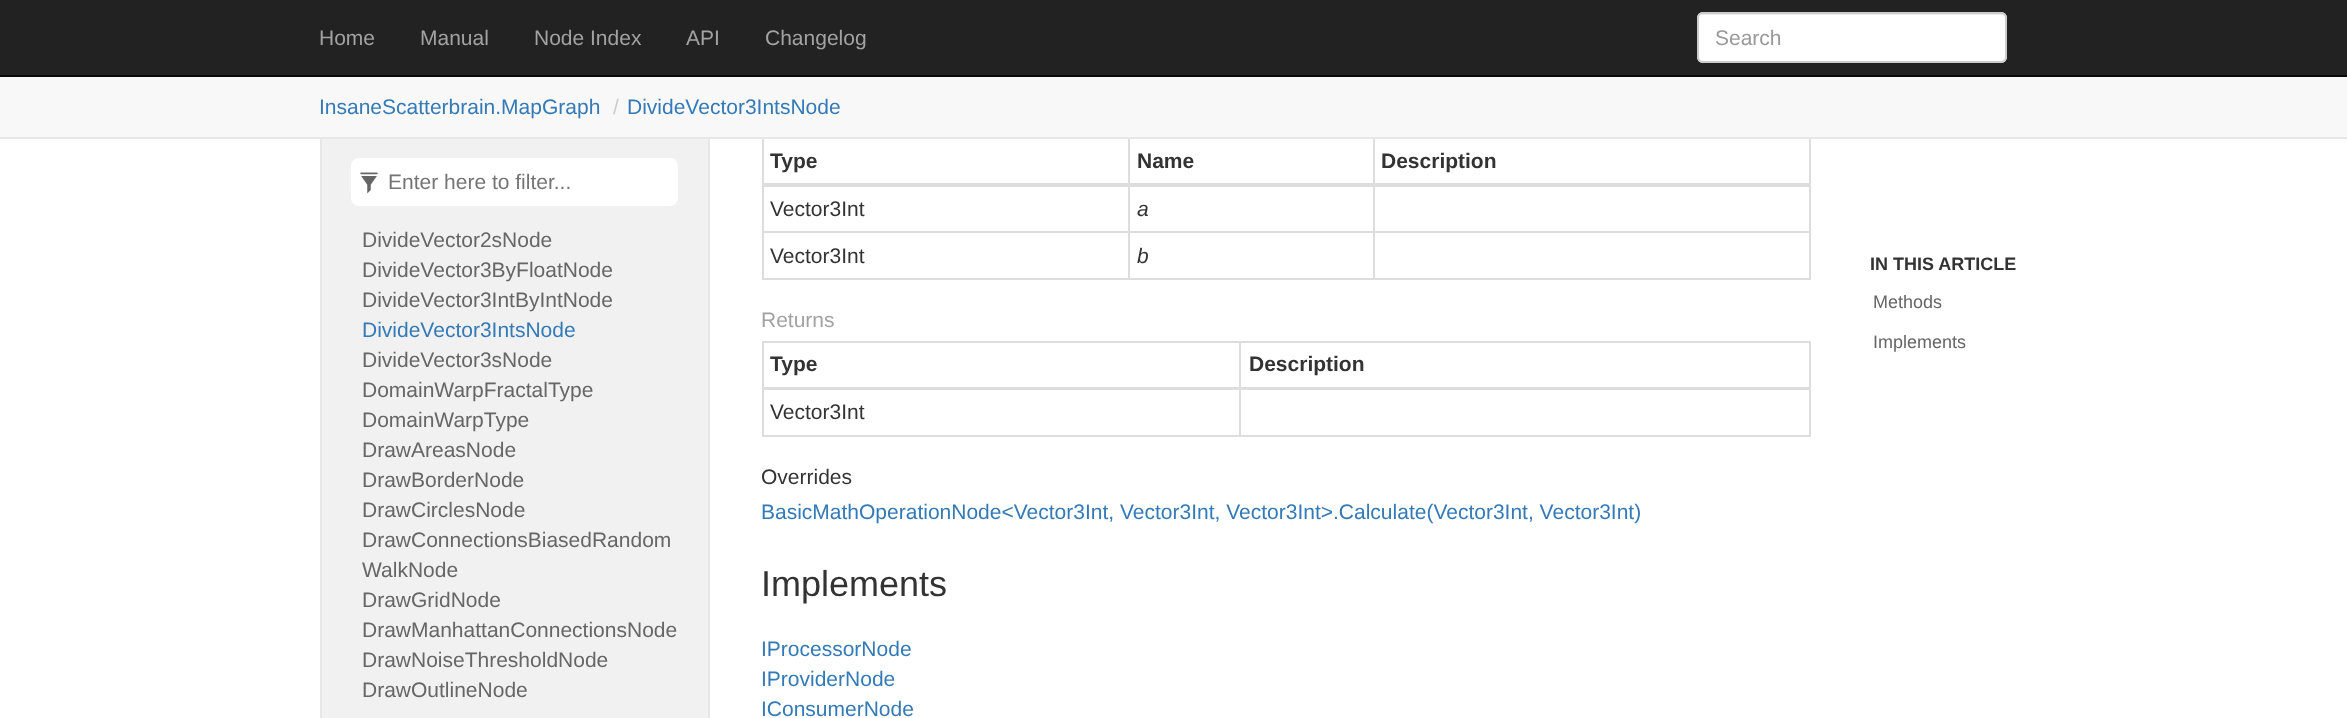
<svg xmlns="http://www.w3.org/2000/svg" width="2347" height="718">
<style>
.a{font:21px Liberation Sans;fill:#a2a2a2}
.b{font:21px Liberation Sans;fill:#999}
.c{font:21px Liberation Sans;fill:#337ab7}
.d{font:21px Liberation Sans;fill:#ccc}
.e{font:21px Liberation Sans;fill:#757575}
.f{font:21px Liberation Sans;fill:#666}
.g{font:bold 21px Liberation Sans;fill:#333}
.h{font:21px Liberation Sans;fill:#333}
.i{font:italic 21px Liberation Sans;fill:#333}
.j{font:36px Liberation Sans;fill:#333}
.k{font:bold 18px Liberation Sans;fill:#333}
.l{font:18px Liberation Sans;fill:#666}
</style>
<rect width="100%" height="100%" fill="#fff"/>
<path fill="#222" d="M0 0h2347v75H0z"/>
<path fill="#080808" d="M0 75h2347v2H0z"/>
<rect fill="#fff" x="1697" y="12" width="310" height="51" rx="6"/>
<path fill="#ececec" d="M1702 15h299c2 0 5 2 5 5c0-3-2-6-5-6h-298c-3 0-5 3-5 6c0-3 2-5 4-5z"/>
<rect fill="none" stroke="#ccc" stroke-width="2" x="1698" y="13" width="308" height="49" rx="5"/>
<path fill="#e7e7e7" d="M708 135h2v583H708z"/>
<path fill="#e7e7e7" d="M320 135h2v583H320z"/>
<path fill="#f8f8f8" d="M0 77h2347v60H0z"/>
<path fill="#ddd" d="M1809 137h2v142H1809z"/>
<path fill="#ddd" d="M762 278h1049v2H762z"/>
<path fill="#ddd" d="M762 137h2v142H762z"/>
<path fill="#ddd" d="M1373 186h438v1H1373z"/>
<path fill="#ddd" d="M1373 231h438v2H1373z"/>
<path fill="#ddd" d="M1373 231h2v48H1373z"/>
<path fill="#ddd" d="M1128 231h246v2H1128z"/>
<path fill="#ddd" d="M1373 137h2v96H1373z"/>
<path fill="#ddd" d="M1128 186h246v1H1128z"/>
<path fill="#ddd" d="M1128 231h2v48H1128z"/>
<path fill="#ddd" d="M762 231h368v2H762z"/>
<path fill="#ddd" d="M1128 137h2v96H1128z"/>
<path fill="#e7e7e7" d="M0 137h2347v2H0z"/>
<path fill="#f1f1f1" d="M322 139h386v579H322z"/>
<rect fill="#fff" x="351" y="158" width="327" height="48" rx="8"/>
<image href="1.png" x="360" y="172" width="18" height="22"/>
<path fill="#ddd" d="M762 183h1049v3H762z"/>
<path fill="#ddd" d="M762 186h368v1H762z"/>
<path fill="#ddd" d="M762 341h1049v2H762z"/>
<path fill="#ddd" d="M1809 341h2v96H1809z"/>
<path fill="#ddd" d="M762 435h1049v2H762z"/>
<path fill="#ddd" d="M762 341h2v96H762z"/>
<path fill="#ddd" d="M1239 341h2v96H1239z"/>
<path fill="#ddd" d="M762 387h1049v3H762z"/>
<text class="a" x="319" y="45">Home</text>
<text class="a" x="420" y="45">Manual</text>
<text class="a" x="534" y="45">Node Index</text>
<text class="a" x="686" y="45">API</text>
<text class="a" x="765" y="45">Changelog</text>
<text class="b" x="1715" y="45">Search</text>
<text class="c" x="319" y="114">InsaneScatterbrain.MapGraph</text>
<text class="d" x="613" y="114">/</text>
<text class="c" x="627" y="114">DivideVector3IntsNode</text>
<text class="e" x="388" y="189">Enter here to filter...</text>
<text class="f" x="362" y="247">DivideVector2sNode</text>
<text class="f" x="362" y="277">DivideVector3ByFloatNode</text>
<text class="f" x="362" y="307">DivideVector3IntByIntNode</text>
<text class="c" x="362" y="337">DivideVector3IntsNode</text>
<text class="f" x="362" y="367">DivideVector3sNode</text>
<text class="f" x="362" y="397">DomainWarpFractalType</text>
<text class="f" x="362" y="427">DomainWarpType</text>
<text class="f" x="362" y="457">DrawAreasNode</text>
<text class="f" x="362" y="487">DrawBorderNode</text>
<text class="f" x="362" y="517">DrawCirclesNode</text>
<text class="f" x="362" y="547">DrawConnectionsBiasedRandom</text>
<text class="f" x="362" y="577">WalkNode</text>
<text class="f" x="362" y="607">DrawGridNode</text>
<text class="f" x="362" y="637">DrawManhattanConnectionsNode</text>
<text class="f" x="362" y="667">DrawNoiseThresholdNode</text>
<text class="f" x="362" y="697">DrawOutlineNode</text>
<text class="g" x="770" y="168">Type</text>
<text class="g" x="1137" y="168">Name</text>
<text class="g" x="1381" y="168">Description</text>
<text class="h" x="770" y="216">Vector3Int</text>
<text class="i" x="1137" y="216">a</text>
<text class="h" x="770" y="263">Vector3Int</text>
<text class="i" x="1137" y="263">b</text>
<text class="a" x="761" y="327">Returns</text>
<text class="g" x="770" y="371">Type</text>
<text class="g" x="1249" y="371">Description</text>
<text class="h" x="770" y="419">Vector3Int</text>
<text class="h" x="761" y="484">Overrides</text>
<text class="c" x="761" y="519">BasicMathOperationNode&lt;Vector3Int, Vector3Int, Vector3Int&gt;.Calculate(Vector3Int, Vector3Int)</text>
<text class="j" x="761" y="596">Implements</text>
<text class="c" x="761" y="656">IProcessorNode</text>
<text class="c" x="761" y="686">IProviderNode</text>
<text class="c" x="761" y="716">IConsumerNode</text>
<text class="k" x="1870" y="270">IN THIS ARTICLE</text>
<text class="l" x="1873" y="308">Methods</text>
<text class="l" x="1873" y="348">Implements</text>
</svg>
